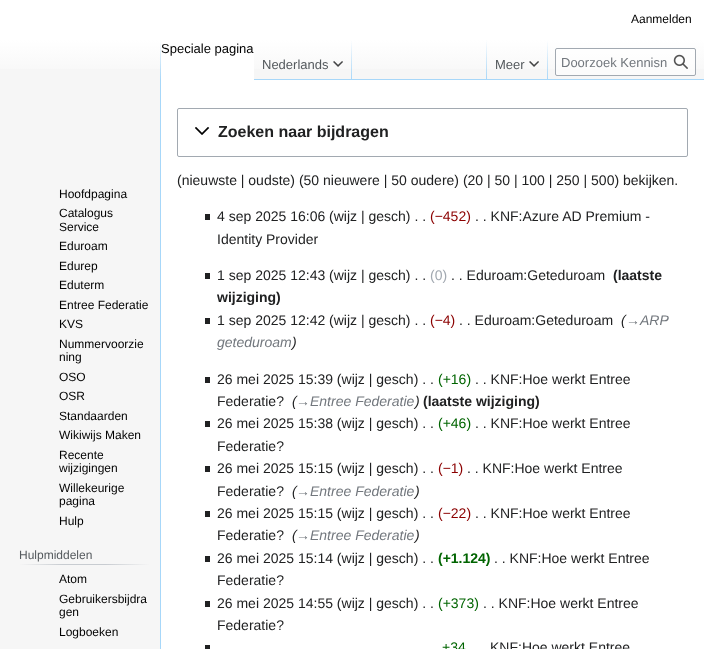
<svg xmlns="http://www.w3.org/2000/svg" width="704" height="649">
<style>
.a{font:12px Liberation Sans;fill:#000}
.b{font:13px Liberation Sans;fill:#000}
.c{font:13px Liberation Sans;fill:#54595d}
.d{font:13px Liberation Sans;fill:#72777d}
.e{font:12px Liberation Sans;fill:#54595d}
.f{font:bold 16px Liberation Sans;fill:#202122}
.g{font:14px Liberation Sans;fill:#202122}
.h{font:14px Liberation Sans;fill:#8b0000}
.i{font:14px Liberation Sans;fill:#a2a9b1}
.j{font:bold 14px Liberation Sans;fill:#202122}
.k{font:italic 14px Liberation Sans;fill:#202122}
.l{font:italic 14px Liberation Sans;fill:#72777d}
.m{font:14px Liberation Sans;fill:#006400}
.n{font:bold 14px Liberation Sans;fill:#006400}
</style>
<defs>
<linearGradient id="g1" gradientUnits="userSpaceOnUse" x1="352" y1="0" x2="352" y2="80"><stop offset="0.5" stop-color="#fff"/><stop offset="1" stop-color="#f6f6f6"/></linearGradient>
<linearGradient id="g2" gradientUnits="userSpaceOnUse" x1="161" y1="40" x2="161" y2="80"><stop offset="0" stop-color="#a7d7f9" stop-opacity="0"/><stop offset="1" stop-color="#a7d7f9"/></linearGradient>
<linearGradient id="g3" gradientUnits="userSpaceOnUse" x1="352" y1="40" x2="352" y2="80"><stop offset="0" stop-color="#a7d7f9" stop-opacity="0"/><stop offset="1" stop-color="#a7d7f9"/></linearGradient>
<linearGradient id="g4" gradientUnits="userSpaceOnUse" x1="487" y1="40" x2="487" y2="80"><stop offset="0" stop-color="#a7d7f9" stop-opacity="0"/><stop offset="1" stop-color="#a7d7f9"/></linearGradient>
<linearGradient id="g5" gradientUnits="userSpaceOnUse" x1="548" y1="40" x2="548" y2="80"><stop offset="0" stop-color="#a7d7f9" stop-opacity="0"/><stop offset="1" stop-color="#a7d7f9"/></linearGradient>
<linearGradient id="g6" gradientUnits="userSpaceOnUse" x1="19" y1="565" x2="150" y2="565"><stop offset="0" stop-color="#f6f6f6"/><stop offset="0.33" stop-color="#c8ccd1"/><stop offset="0.66" stop-color="#c8ccd1"/><stop offset="1" stop-color="#f6f6f6"/></linearGradient>
</defs>
<rect width="100%" height="100%" fill="#f6f6f6"/>
<path fill="url(#g1)" d="M0 0h704v69H0z"/>
<path fill="#a7d7f9" d="M160 79h1v570H160z"/>
<path fill="url(#g2)" d="M160 40h1v40H160z"/>
<path fill="#fff" d="M161 51h93v29H161z"/>
<path fill="#a7d7f9" d="M254 79h450v1H254z"/>
<path fill="url(#g3)" d="M351 40h1v40H351z"/>
<image href="1.png" x="333" y="61" width="10" height="6"/>
<path fill="url(#g4)" d="M486 40h1v40H486z"/>
<path fill="url(#g5)" d="M547 40h1v40H547z"/>
<image href="1.png" x="529" y="61" width="10" height="6"/>
<rect fill="#ffffff80" stroke="#a2a9b1" x="555.5" y="48.5" width="140" height="27" rx="1.5"/>
<image href="2.png" x="673" y="54" width="15" height="15"/>
<path fill="url(#g6)" d="M19 564h131v1H19z"/>
<path fill="#fff" d="M161 80h543v569H161z"/>
<rect fill="none" stroke="#a2a9b1" x="177.5" y="108.5" width="510" height="48" rx="1.5"/>
<image href="3.png" x="195" y="127" width="15" height="8"/>
<path fill="#202122" d="M205 214h5v6H205z"/>
<path fill="#202122" d="M205 273h5v6H205z"/>
<path fill="#202122" d="M205 318h5v6H205z"/>
<path fill="#202122" d="M205 377h5v6H205z"/>
<path fill="#202122" d="M205 421h5v6H205z"/>
<path fill="#202122" d="M205 466h5v6H205z"/>
<path fill="#202122" d="M205 511h5v6H205z"/>
<path fill="#202122" d="M205 556h5v6H205z"/>
<path fill="#202122" d="M205 601h5v6H205z"/>
<path fill="#202122" d="M205 645h5v4H205z"/>
<text class="a" x="631" y="23">Aanmelden</text>
<text class="b" x="161" y="53">Speciale pagina</text>
<text class="c" x="262" y="69">Nederlands</text>
<text class="c" x="495" y="69">Meer</text>
<text class="d" x="561" y="67">Doorzoek Kennisn</text>
<text class="a" x="59" y="198">Hoofdpagina</text>
<text class="a" x="59" y="217">Catalogus</text>
<text class="a" x="59" y="231">Service</text>
<text class="a" x="59" y="250">Eduroam</text>
<text class="a" x="59" y="270">Edurep</text>
<text class="a" x="59" y="289">Eduterm</text>
<text class="a" x="59" y="309">Entree Federatie</text>
<text class="a" x="59" y="328">KVS</text>
<text class="a" x="59" y="348">Nummervoorzie</text>
<text class="a" x="59" y="361">ning</text>
<text class="a" x="59" y="381">OSO</text>
<text class="a" x="59" y="400">OSR</text>
<text class="a" x="59" y="420">Standaarden</text>
<text class="a" x="59" y="439">Wikiwijs Maken</text>
<text class="a" x="59" y="459">Recente</text>
<text class="a" x="59" y="472">wijzigingen</text>
<text class="a" x="59" y="492">Willekeurige</text>
<text class="a" x="59" y="505">pagina</text>
<text class="a" x="59" y="525">Hulp</text>
<text class="e" x="19" y="559">Hulpmiddelen</text>
<text class="a" x="59" y="583">Atom</text>
<text class="a" x="59" y="603">Gebruikersbijdra</text>
<text class="a" x="59" y="616">gen</text>
<text class="a" x="59" y="636">Logboeken</text>
<text class="f" x="218" y="137">Zoeken naar bijdragen</text>
<text class="g" x="177" y="185">(nieuwste | oudste) (50 nieuwere | 50 oudere) (20 | 50 | 100 | 250 | 500) bekijken.</text>
<text class="g" x="217" y="221">4 sep 2025 16:06 (wijz | gesch) . .</text>
<text class="h" x="430" y="221">(−452)</text>
<text class="g" x="475" y="221">. . KNF:Azure AD Premium -</text>
<text class="g" x="217" y="244">Identity Provider</text>
<text class="g" x="217" y="280">1 sep 2025 12:43 (wijz | gesch) . .</text>
<text class="i" x="430" y="280">(0)</text>
<text class="g" x="451" y="280">. . Eduroam:Geteduroam</text>
<text class="j" x="613" y="280">(laatste</text>
<text class="j" x="217" y="302">wijziging)</text>
<text class="g" x="217" y="325">1 sep 2025 12:42 (wijz | gesch) . .</text>
<text class="h" x="430" y="325">(−4)</text>
<text class="g" x="459" y="325">. . Eduroam:Geteduroam</text>
<text class="k" x="621" y="325">(</text>
<text class="l" x="626" y="325">→ARP</text>
<text class="l" x="217" y="347">geteduroam</text>
<text class="k" x="292" y="347">)</text>
<text class="g" x="217" y="384">26 mei 2025 15:39 (wijz | gesch) . .</text>
<text class="m" x="438" y="384">(+16)</text>
<text class="g" x="475" y="384">. . KNF:Hoe werkt Entree</text>
<text class="g" x="217" y="406">Federatie?</text>
<text class="k" x="292" y="406">(</text>
<text class="l" x="296" y="406">→Entree Federatie</text>
<text class="k" x="415" y="406">)</text>
<text class="j" x="423" y="406">(laatste wijziging)</text>
<text class="g" x="217" y="428">26 mei 2025 15:38 (wijz | gesch) . .</text>
<text class="m" x="438" y="428">(+46)</text>
<text class="g" x="475" y="428">. . KNF:Hoe werkt Entree</text>
<text class="g" x="217" y="451">Federatie?</text>
<text class="g" x="217" y="473">26 mei 2025 15:15 (wijz | gesch) . .</text>
<text class="h" x="438" y="473">(−1)</text>
<text class="g" x="467" y="473">. . KNF:Hoe werkt Entree</text>
<text class="g" x="217" y="496">Federatie?</text>
<text class="k" x="292" y="496">(</text>
<text class="l" x="296" y="496">→Entree Federatie</text>
<text class="k" x="415" y="496">)</text>
<text class="g" x="217" y="518">26 mei 2025 15:15 (wijz | gesch) . .</text>
<text class="h" x="438" y="518">(−22)</text>
<text class="g" x="475" y="518">. . KNF:Hoe werkt Entree</text>
<text class="g" x="217" y="540">Federatie?</text>
<text class="k" x="292" y="540">(</text>
<text class="l" x="296" y="540">→Entree Federatie</text>
<text class="k" x="415" y="540">)</text>
<text class="g" x="217" y="563">26 mei 2025 15:14 (wijz | gesch) . .</text>
<text class="n" x="438" y="563">(+1.124)</text>
<text class="g" x="494" y="563">. . KNF:Hoe werkt Entree</text>
<text class="g" x="217" y="585">Federatie?</text>
<text class="g" x="217" y="608">26 mei 2025 14:55 (wijz | gesch) . .</text>
<text class="m" x="438" y="608">(+373)</text>
<text class="g" x="483" y="608">. . KNF:Hoe werkt Entree</text>
<text class="g" x="217" y="630">Federatie?</text>
<text class="m" x="442" y="652">+34</text>
<text class="g" x="490" y="652">KNF:Hoe werkt Entree</text>
</svg>
